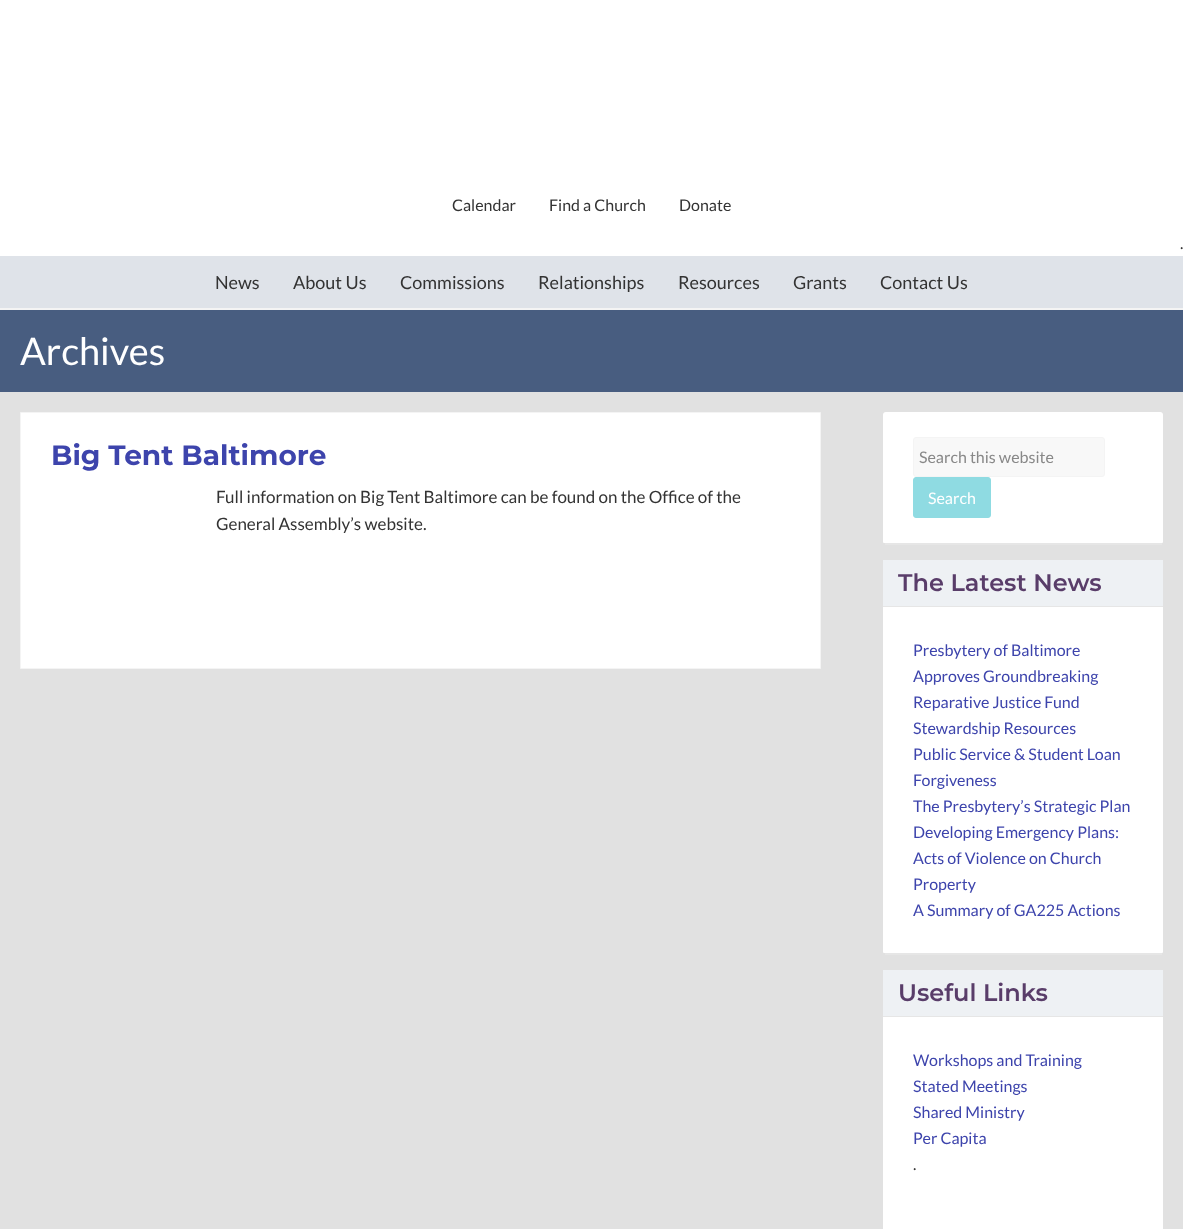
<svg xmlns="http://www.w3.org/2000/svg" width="1183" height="1229">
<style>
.a{font:16px Lato;fill:#333}
.b{font:18px Lato;fill:#333}
.c{font:38px Lato;fill:#fff}
.d{font:bold 28px Montserrat;fill:#3d44ac}
.e{font:17px Lato;fill:#333}
.f{font:16px Lato;fill:#888}
.g{font:16px Lato;fill:#fff}
.h{font:600 24px Montserrat;fill:#593d69}
.i{font:16px Lato;fill:#3d44ac}
</style>
<rect width="100%" height="100%" fill="#e1e1e1"/>
<path fill="#fff" d="M0 0h1183v256H0z"/>
<path fill="#dfe3e9" d="M0 256h1183v52H0z"/>
<path fill="#f4f4f4" d="M0 308h1183v2H0z"/>
<path fill="#485d80" d="M0 310h1183v82H0z"/>
<path fill="#fff" stroke="#f4f4f4" d="M20.5 412.5h800v256H20.5z"/>
<path fill="#fff" d="M886 412h274c2 0 3 1 3 3v127c0 1-1 1-3 1h-274c-2 0-3 0-3-1v-127c0-2 1-3 3-3z"/>
<path fill="#e6e6e6" d="M885 543h277v2H885z"/>
<rect fill="#f8f8f8" stroke="#f4f4f4" x="913.5" y="437.5" width="191" height="39" rx="2.5"/>
<rect fill="#8fdbe2" stroke="#8fdbe2" x="913.5" y="477.5" width="77" height="40" rx="2.5"/>
<path fill="#fff" d="M886 560h274c2 0 3 1 3 3v389c0 1-1 1-3 1h-274c-2 0-3 0-3-1v-389c0-2 1-3 3-3z"/>
<path fill="#e6e6e6" d="M885 953h277v2H885z"/>
<path fill="#eef1f4" d="M883 560h280v46H883z"/>
<path fill="#e6e6e6" d="M883 606h280v1H883z"/>
<path fill="#fff" d="M886 970h274c2 0 3 1 3 3v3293c0 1-1 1-3 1h-274c-2 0-3 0-3-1v-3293c0-2 1-3 3-3z"/>
<path fill="#eef1f4" d="M883 970h280v46H883z"/>
<path fill="#e6e6e6" d="M883 1016h280v1H883z"/>
<text class="a" x="452" y="211">Calendar</text>
<text class="a" x="549" y="211">Find a Church</text>
<text class="a" x="679" y="211">Donate</text>
<text class="a" x="1180" y="249">.</text>
<text class="b" x="215" y="289">News</text>
<text class="b" x="293" y="289">About Us</text>
<text class="b" x="400" y="289">Commissions</text>
<text class="b" x="538" y="289">Relationships</text>
<text class="b" x="678" y="289">Resources</text>
<text class="b" x="793" y="289">Grants</text>
<text class="b" x="880" y="289">Contact Us</text>
<text class="c" x="20" y="365">Archives</text>
<text class="d" x="51" y="465">Big Tent Baltimore</text>
<text class="e" x="216" y="503">Full information on Big Tent Baltimore can be found on the Office of the</text>
<text class="e" x="216" y="530">General Assembly’s website.</text>
<text class="f" x="919" y="463">Search this website</text>
<text class="g" x="928" y="504">Search</text>
<text class="h" x="898" y="591">The Latest News</text>
<text class="i" x="913" y="656">Presbytery of Baltimore</text>
<text class="i" x="913" y="682">Approves Groundbreaking</text>
<text class="i" x="913" y="708">Reparative Justice Fund</text>
<text class="i" x="913" y="734">Stewardship Resources</text>
<text class="i" x="913" y="760">Public Service &amp; Student Loan</text>
<text class="i" x="913" y="786">Forgiveness</text>
<text class="i" x="913" y="812">The Presbytery’s Strategic Plan</text>
<text class="i" x="913" y="838">Developing Emergency Plans:</text>
<text class="i" x="913" y="864">Acts of Violence on Church</text>
<text class="i" x="913" y="890">Property</text>
<text class="i" x="913" y="916">A Summary of GA225 Actions</text>
<text class="h" x="898" y="1001">Useful Links</text>
<text class="i" x="913" y="1066">Workshops and Training</text>
<text class="i" x="913" y="1092">Stated Meetings</text>
<text class="i" x="913" y="1118">Shared Ministry</text>
<text class="i" x="913" y="1144">Per Capita</text>
<text class="a" x="913" y="1170">.</text>
</svg>
